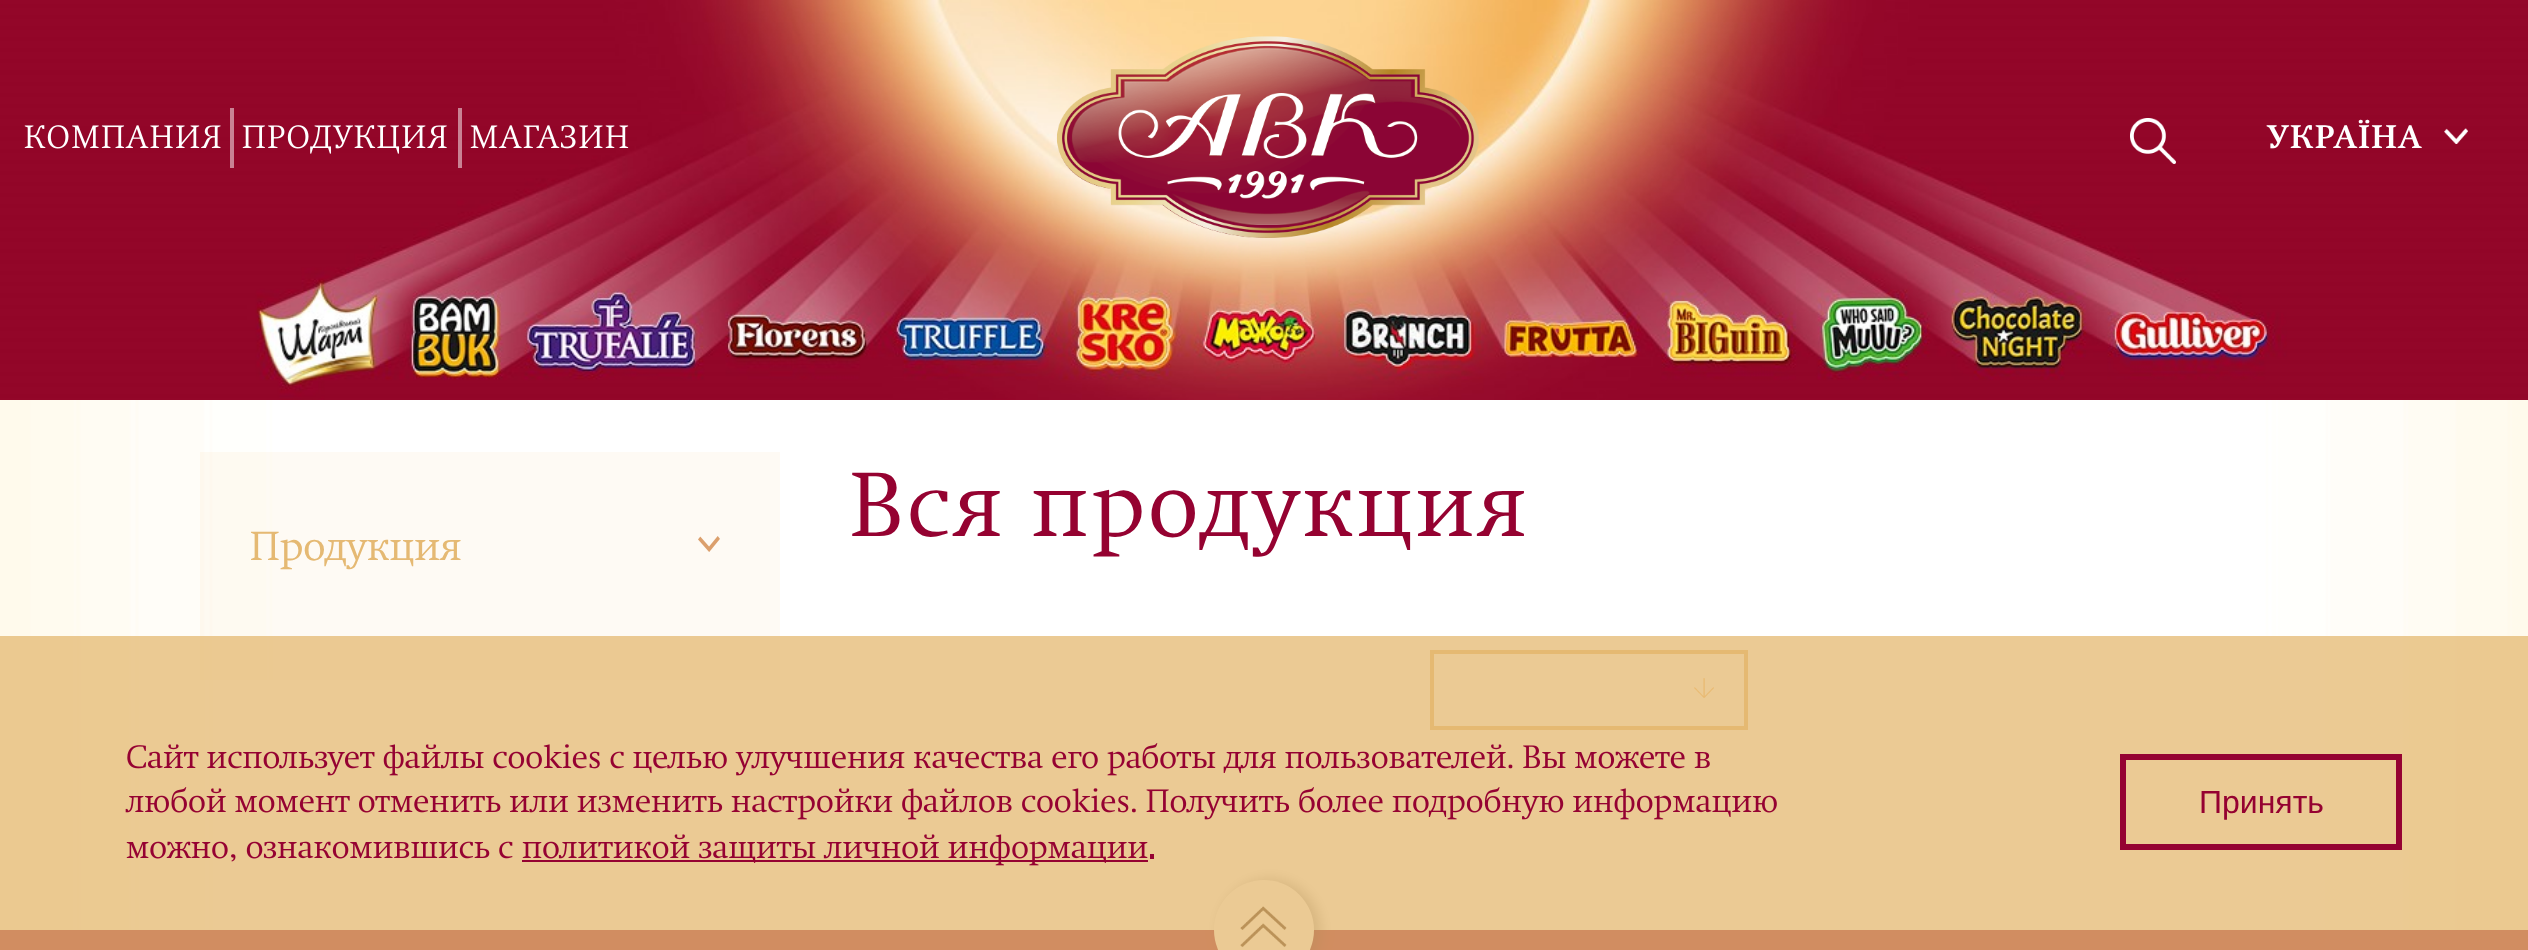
<svg xmlns="http://www.w3.org/2000/svg" width="2528" height="950">
<style>
.a{font:bold 32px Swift;letter-spacing:1.5px;fill:#fff}
.b{font:300 40px Swift;fill:#e5b973}
.c{font:300 90px Swift;letter-spacing:3.6px;fill:#950231}
.d{font:32px Liberation Sans;fill:#950231}
</style>
<rect width="100%" height="100%" fill="#fff"/>
<image href="1.png" x="0" y="400" width="2528" height="530"/>
<image href="2.png" x="0" y="0" width="2528" height="400"/>
<image href="3.png" x="1056" y="36" width="423" height="202"/>
<image href="4.png" x="2130" y="118" width="46" height="46"/>
<image href="5.png" x="24" y="125" width="197" height="24"/>
<path fill="#c98294" d="M230 108h4v60H230z"/>
<image href="6.png" x="242" y="125" width="205" height="29"/>
<path fill="#c98294" d="M458 108h4v60H458z"/>
<image href="7.png" x="470" y="125" width="159" height="24"/>
<image href="8.png" x="2444" y="128" width="24" height="16"/>
<path fill="#f8d0911a" d="M200 452h580v228H200z"/>
<image href="9.png" x="698" y="536" width="22" height="16"/>
<path fill="none" stroke="#e5b973" stroke-width="4" d="M1432 652h314v76H1432z"/>
<image href="10.png" x="1694" y="678" width="20" height="20"/>
<path fill="#94042a" d="M0 930h2528v20H0z"/>
<rect fill="#00000059" filter="blur(7px)" x="1220" y="880" width="100" height="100" rx="50"/>
<circle fill="#fff" cx="1264" cy="930" r="50"/>
<image href="15.png" x="1240" y="906" width="47" height="42"/>
<path fill="#e5b973c2" d="M0 636h2528v314H0z"/>
<image href="11.png" x="127" y="743" width="1583" height="33"/>
<image href="12.png" x="125" y="787" width="1652" height="33"/>
<image href="13.png" x="126" y="841" width="387" height="21"/>
<path fill="#950232" d="M522 860h626v2H522z"/>
<image href="14.png" x="522" y="834" width="626" height="32"/>
<path fill="#950232" d="M1150 854h4v5H1150z"/>
<path fill="none" stroke="#950232" stroke-width="6" d="M2123 757h276v90H2123z"/>
<text class="a" x="2267" y="148">УКРАЇНА</text>
<text class="b" x="250" y="560">Продукция</text>
<text class="c" x="850" y="536">Вся продукция</text>
<text class="d" x="2199" y="813">Принять</text>
</svg>
